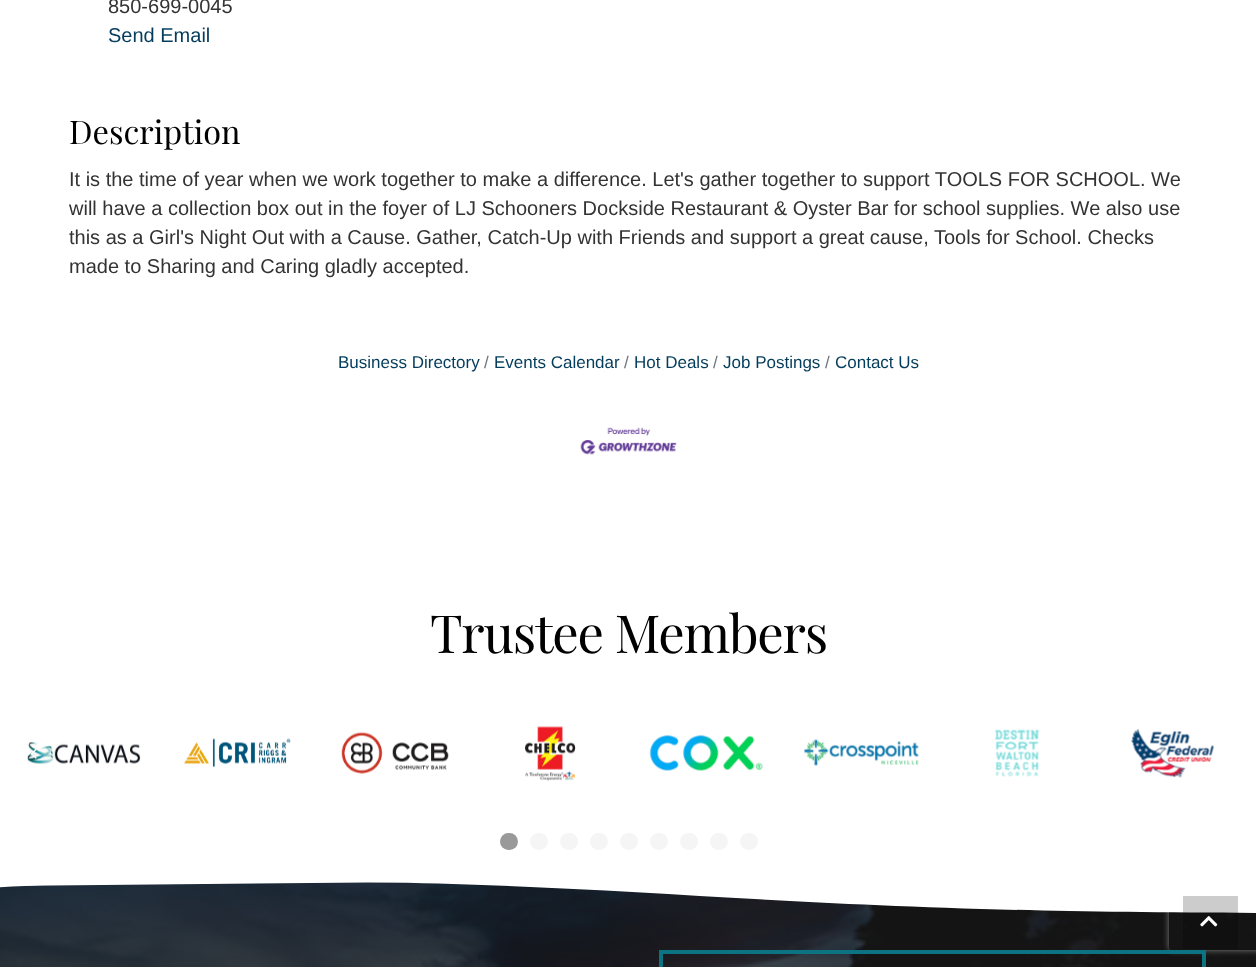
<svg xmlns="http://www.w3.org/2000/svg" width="1256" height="967">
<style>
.a{font:20px Liberation Sans;fill:#333}
.b{font:20px Liberation Sans;fill:#043c5c}
.c{font:32.5px Playfair Display;fill:#000}
.d{font:17px Liberation Sans;fill:#043c5c}
.e{font:17px Liberation Sans;fill:#6c757d}
.f{font:52.5px Playfair Display;letter-spacing:-1.25px;fill:#000}
</style>
<defs>
<clipPath id="clip1"><path d="M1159 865h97v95h-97zm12.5 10h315c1.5 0 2.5 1 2.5 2.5v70c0 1.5-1 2.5-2.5 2.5h-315c-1.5 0-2.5-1-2.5-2.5v-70c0-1.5 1-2.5 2.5-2.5z" clip-rule="evenodd"/></clipPath>
<clipPath id="clip2"><path d="M0 858h1256v18H0z"/></clipPath>
</defs>
<rect width="100%" height="100%" fill="#fff"/>
<image href="1.png" x="580" y="427" width="97" height="28"/>
<image href="2.png" x="27" y="741" width="114" height="23"/>
<image href="3.png" x="184" y="738" width="107" height="30"/>
<image href="4.png" x="341" y="732" width="108" height="42"/>
<image href="5.png" x="525" y="726" width="51" height="55"/>
<image href="6.png" x="649" y="735" width="115" height="36"/>
<image href="7.png" x="803" y="739" width="116" height="27"/>
<image href="8.png" x="995" y="729" width="45" height="48"/>
<image href="9.png" x="1131" y="728" width="83" height="50"/>
<rect fill="#999" x="500" y="833" width="18" height="17" rx="8.5"/>
<rect fill="#f5f5f5" x="530" y="833" width="18" height="17" rx="8.5"/>
<rect fill="#f5f5f5" x="560" y="833" width="18" height="17" rx="8.5"/>
<rect fill="#f5f5f5" x="590" y="833" width="18" height="17" rx="8.5"/>
<rect fill="#f5f5f5" x="620" y="833" width="18" height="17" rx="8.5"/>
<rect fill="#f5f5f5" x="650" y="833" width="18" height="17" rx="8.5"/>
<rect fill="#f5f5f5" x="680" y="833" width="18" height="17" rx="8.5"/>
<rect fill="#f5f5f5" x="710" y="833" width="18" height="17" rx="8.5"/>
<rect fill="#f5f5f5" x="740" y="833" width="18" height="17" rx="8.5"/>
<image href="10.png" x="31" y="749" width="6" height="10"/>
<image href="11.png" x="0" y="882" width="1256" height="85"/>
<g clip-path="url(#clip1)">
<rect fill="#808080" filter="blur(3px)" x="1169" y="875" width="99" height="75" rx="2.5"/>
</g>
<g clip-path="url(#clip2)">
<path fill="#fff" d="M0 857h1256zm0 19h1256v-9h-1256zm1256-19v10h-1256v-10l628 10z"/>
</g>
<path fill="#fff" d="M0 886h1256zm0-12h1256v6h-1256zm1256 12v-6h-1256v6l628-6z"/>
<path fill="#fff" d="M-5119 875h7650c-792 0-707 38-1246 38c-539 0-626-32-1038-32c-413 0-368 39-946 27c-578-11-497 28-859 28c-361 0-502-28-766-28c-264 0-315 15-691 12c-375-4-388-34-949-25c-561 9-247-20-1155-20z"/>
<path fill="none" stroke="#0c7383" stroke-width="4" d="M661 952h543v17H661z"/>
<path fill="#00000033" d="M1183 896h55v53H1183z"/>
<image href="12.png" x="1200" y="916" width="18" height="11"/>
<text class="a" x="108" y="13">850-699-0045</text>
<text class="b" x="108" y="42">Send Email</text>
<text class="c" x="69" y="144">Description</text>
<text class="a" x="69" y="186">It is the time of year when we work together to make a difference. Let's gather together to support TOOLS FOR SCHOOL. We</text>
<text class="a" x="69" y="215">will have a collection box out in the foyer of LJ Schooners Dockside Restaurant &amp; Oyster Bar for school supplies. We also use</text>
<text class="a" x="69" y="244">this as a Girl's Night Out with a Cause. Gather, Catch-Up with Friends and support a great cause, Tools for School. Checks</text>
<text class="a" x="69" y="273">made to Sharing and Caring gladly accepted.</text>
<text class="d" x="338" y="368">Business Directory</text>
<text class="e" x="484" y="368">/</text>
<text class="d" x="494" y="368">Events Calendar</text>
<text class="e" x="624" y="368">/</text>
<text class="d" x="634" y="368">Hot Deals</text>
<text class="e" x="713" y="368">/</text>
<text class="d" x="723" y="368">Job Postings</text>
<text class="e" x="825" y="368">/</text>
<text class="d" x="835" y="368">Contact Us</text>
<text class="f" x="430" y="653">Trustee Members</text>
</svg>
